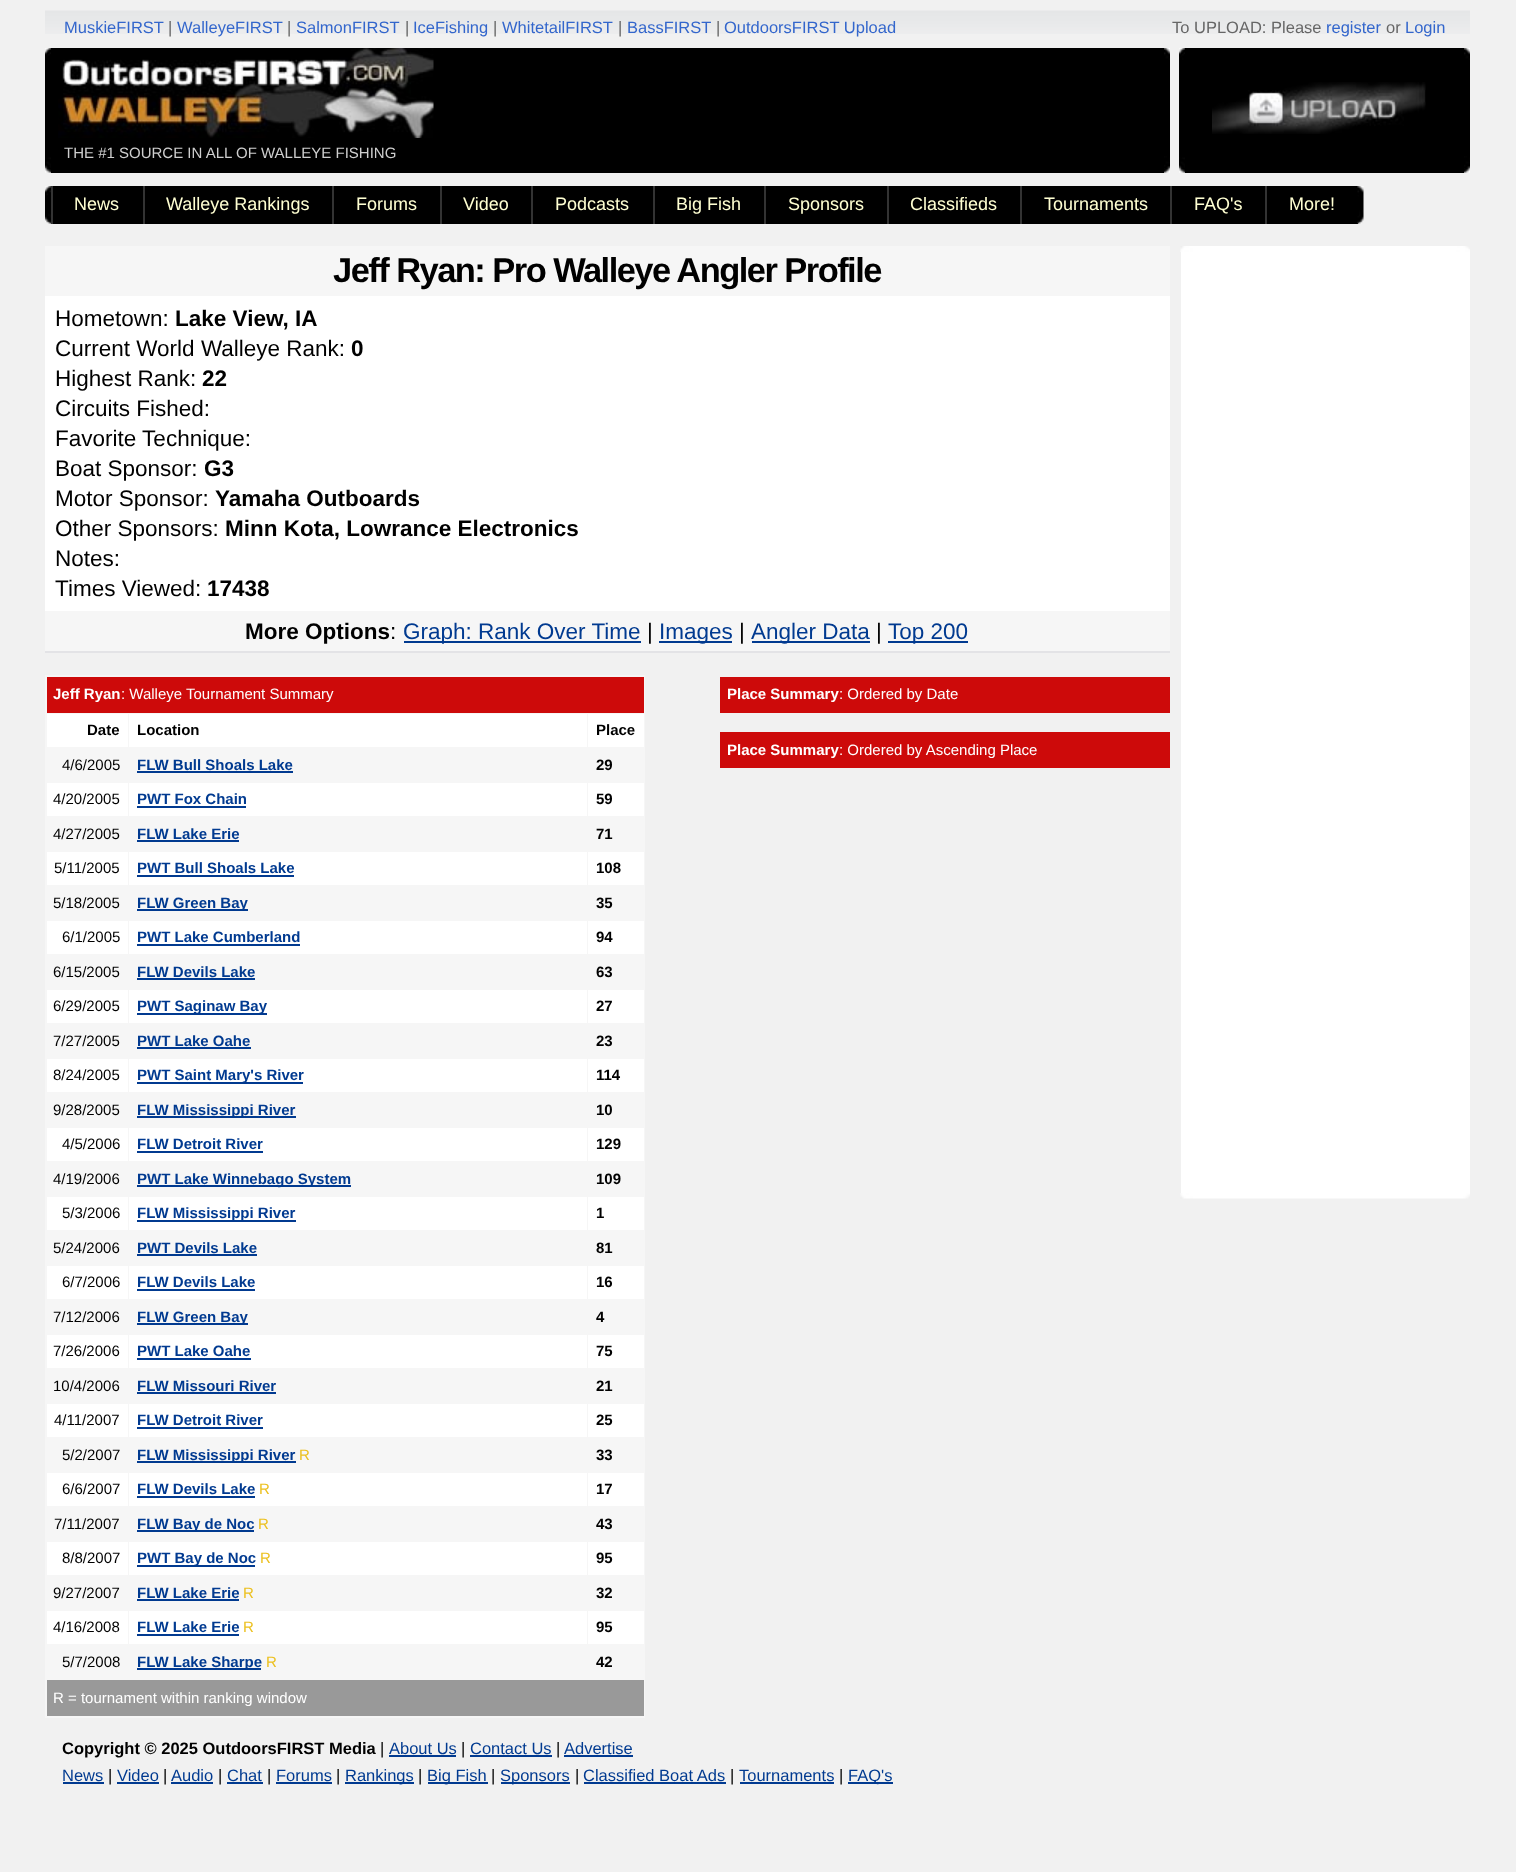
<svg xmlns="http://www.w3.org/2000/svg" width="1516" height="1872">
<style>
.a{font:16.5px Liberation Sans;fill:#36c}
.b{font:16.5px Liberation Sans;fill:#666}
.c{font:15px Liberation Sans;fill:#cecece}
.d{font:18px Liberation Sans;fill:#ffffd2}
.e{font:bold 34.5px Liberation Sans;letter-spacing:-1.55px;fill:#000}
.f{font:22.5px Liberation Sans;fill:#000}
.g{font:bold 22.5px Liberation Sans;fill:#000}
.h{font:22.5px Liberation Sans;fill:#013a90}
.i{font:bold 15px Liberation Sans;fill:#fff}
.j{font:15px Liberation Sans;fill:#fff}
.k{font:bold 15px Liberation Sans;fill:#000}
.l{font:15px Liberation Sans;fill:#000}
.m{font:bold 15px Liberation Sans;fill:#013a90}
.n{font:15px Liberation Sans;fill:#ecc01f}
.o{font:bold 16.5px Liberation Sans;fill:#000}
.p{font:16.5px Liberation Sans;fill:#000}
.q{font:16.5px Liberation Sans;fill:#013a90}
</style>
<rect width="100%" height="100%" fill="#f1f1f1"/>
<image href="1.png" x="45" y="10" width="1425" height="24"/>
<image href="2.png" x="45" y="48" width="6" height="125"/>
<path fill="#000" d="M51 48h1113v125H51z"/>
<image href="3.png" x="58" y="48" width="376" height="90"/>
<image href="4.png" x="1164" y="48" width="6" height="125"/>
<image href="5.png" x="1179" y="48" width="6" height="125"/>
<path fill="#000" d="M1185 48h279v125H1185z"/>
<image href="6.png" x="1212" y="82" width="214" height="52"/>
<image href="4.png" x="1464" y="48" width="6" height="125"/>
<image href="7.png" x="45" y="186" width="6" height="38"/>
<path fill="#000" d="M53 186h90v38H53z"/>
<path fill="#333" d="M51 186h2v38H51z"/>
<path fill="#000" d="M145 186h187v38H145z"/>
<path fill="#333" d="M143 186h2v38H143z"/>
<path fill="#000" d="M334 186h106v38H334z"/>
<path fill="#333" d="M332 186h2v38H332z"/>
<path fill="#000" d="M442 186h89v38H442z"/>
<path fill="#333" d="M440 186h2v38H440z"/>
<path fill="#000" d="M533 186h120v38H533z"/>
<path fill="#333" d="M531 186h2v38H531z"/>
<path fill="#000" d="M655 186h109v38H655z"/>
<path fill="#333" d="M653 186h2v38H653z"/>
<path fill="#000" d="M766 186h121v38H766z"/>
<path fill="#333" d="M764 186h2v38H764z"/>
<path fill="#000" d="M889 186h131v38H889z"/>
<path fill="#333" d="M887 186h2v38H887z"/>
<path fill="#000" d="M1022 186h148v38H1022z"/>
<path fill="#333" d="M1020 186h2v38H1020z"/>
<path fill="#000" d="M1172 186h93v38H1172z"/>
<path fill="#333" d="M1170 186h2v38H1170z"/>
<path fill="#000" d="M1267 186h91v38H1267z"/>
<path fill="#333" d="M1265 186h2v38H1265z"/>
<image href="8.png" x="1357" y="186" width="7" height="38"/>
<path fill="#f6f6f6" d="M45 246h1125v50H45z"/>
<path fill="#fff" d="M45 296h1125v315H45z"/>
<path fill="#f6f6f6" d="M45 611h1125v40H45z"/>
<path fill="#e3e3e6" d="M45 651h1125v2H45z"/>
<path fill="#013a90" d="M404 641h237v2H404z"/>
<path fill="#013a90" d="M659 641h73v2H659z"/>
<path fill="#013a90" d="M752 641h118v2H752z"/>
<path fill="#013a90" d="M888 641h80v2H888z"/>
<path fill="#f6f6f6" d="M45 675h600v1043H45z"/>
<path fill="#cd0a0a" d="M47 677h597v36H47z"/>
<path fill="#fff" d="M47 714h81v33H47z"/>
<path fill="#fff" d="M129 714h458v33H129z"/>
<path fill="#fff" d="M588 714h56v33H588z"/>
<path fill="#013a90" d="M137 771h156v2H137z"/>
<path fill="#fff" d="M47 783h81v33H47z"/>
<path fill="#fff" d="M129 783h458v33H129z"/>
<path fill="#013a90" d="M137 806h109v2H137z"/>
<path fill="#fff" d="M588 783h56v33H588z"/>
<path fill="#013a90" d="M137 840h102v2H137z"/>
<path fill="#fff" d="M47 852h81v33H47z"/>
<path fill="#fff" d="M129 852h458v33H129z"/>
<path fill="#013a90" d="M137 875h157v2H137z"/>
<path fill="#fff" d="M588 852h56v33H588z"/>
<path fill="#013a90" d="M137 909h111v2H137z"/>
<path fill="#fff" d="M47 921h81v33H47z"/>
<path fill="#fff" d="M129 921h458v33H129z"/>
<path fill="#013a90" d="M137 944h163v2H137z"/>
<path fill="#fff" d="M588 921h56v33H588z"/>
<path fill="#013a90" d="M137 978h118v2H137z"/>
<path fill="#fff" d="M47 990h81v33H47z"/>
<path fill="#fff" d="M129 990h458v33H129z"/>
<path fill="#013a90" d="M137 1013h130v2H137z"/>
<path fill="#fff" d="M588 990h56v33H588z"/>
<path fill="#013a90" d="M137 1047h114v2H137z"/>
<path fill="#fff" d="M47 1059h81v33H47z"/>
<path fill="#fff" d="M129 1059h458v33H129z"/>
<path fill="#013a90" d="M137 1082h166v2H137z"/>
<path fill="#fff" d="M588 1059h56v33H588z"/>
<path fill="#013a90" d="M137 1116h159v2H137z"/>
<path fill="#fff" d="M47 1128h81v33H47z"/>
<path fill="#fff" d="M129 1128h458v33H129z"/>
<path fill="#013a90" d="M137 1151h126v2H137z"/>
<path fill="#fff" d="M588 1128h56v33H588z"/>
<path fill="#013a90" d="M137 1185h214v2H137z"/>
<path fill="#fff" d="M47 1197h81v33H47z"/>
<path fill="#fff" d="M129 1197h458v33H129z"/>
<path fill="#013a90" d="M137 1220h159v2H137z"/>
<path fill="#fff" d="M588 1197h56v33H588z"/>
<path fill="#013a90" d="M137 1254h120v2H137z"/>
<path fill="#fff" d="M47 1266h81v33H47z"/>
<path fill="#fff" d="M129 1266h458v33H129z"/>
<path fill="#013a90" d="M137 1289h118v2H137z"/>
<path fill="#fff" d="M588 1266h56v33H588z"/>
<path fill="#013a90" d="M137 1323h111v2H137z"/>
<path fill="#fff" d="M47 1335h81v33H47z"/>
<path fill="#fff" d="M129 1335h458v33H129z"/>
<path fill="#013a90" d="M137 1358h114v2H137z"/>
<path fill="#fff" d="M588 1335h56v33H588z"/>
<path fill="#013a90" d="M137 1392h139v2H137z"/>
<path fill="#fff" d="M47 1404h81v33H47z"/>
<path fill="#fff" d="M129 1404h458v33H129z"/>
<path fill="#013a90" d="M137 1427h126v2H137z"/>
<path fill="#fff" d="M588 1404h56v33H588z"/>
<path fill="#013a90" d="M137 1461h159v2H137z"/>
<path fill="#fff" d="M47 1473h81v33H47z"/>
<path fill="#fff" d="M129 1473h458v33H129z"/>
<path fill="#013a90" d="M137 1496h118v2H137z"/>
<path fill="#fff" d="M588 1473h56v33H588z"/>
<path fill="#013a90" d="M137 1530h117v2H137z"/>
<path fill="#fff" d="M47 1542h81v33H47z"/>
<path fill="#fff" d="M129 1542h458v33H129z"/>
<path fill="#013a90" d="M137 1565h118v2H137z"/>
<path fill="#fff" d="M588 1542h56v33H588z"/>
<path fill="#013a90" d="M137 1599h102v2H137z"/>
<path fill="#fff" d="M47 1611h81v33H47z"/>
<path fill="#fff" d="M129 1611h458v33H129z"/>
<path fill="#013a90" d="M137 1634h102v2H137z"/>
<path fill="#fff" d="M588 1611h56v33H588z"/>
<path fill="#013a90" d="M137 1668h124v2H137z"/>
<path fill="#999" d="M47 1680h597v36H47z"/>
<path fill="#cd0a0a" d="M720 677h450v36H720z"/>
<path fill="#cd0a0a" d="M720 732h450v36H720z"/>
<path fill="#013a90" d="M389 1755h67v2H389z"/>
<path fill="#013a90" d="M470 1755h82v2H470z"/>
<path fill="#013a90" d="M564 1755h69v2H564z"/>
<path fill="#013a90" d="M63 1782h41v2H63z"/>
<path fill="#013a90" d="M117 1782h42v2H117z"/>
<path fill="#013a90" d="M171 1782h42v2H171z"/>
<path fill="#013a90" d="M227 1782h36v2H227z"/>
<path fill="#013a90" d="M276 1782h56v2H276z"/>
<path fill="#013a90" d="M345 1782h69v2H345z"/>
<path fill="#013a90" d="M428 1782h60v2H428z"/>
<path fill="#013a90" d="M501 1782h69v2H501z"/>
<path fill="#013a90" d="M584 1782h142v2H584z"/>
<path fill="#013a90" d="M740 1782h94v2H740z"/>
<path fill="#013a90" d="M848 1782h45v2H848z"/>
<image href="9.png" x="1180" y="246" width="290" height="6"/>
<path fill="#fff" d="M1181 252h289v941H1181z"/>
<image href="10.png" x="1180" y="1193" width="290" height="6"/>
<text class="a" x="64" y="33">MuskieFIRST</text>
<text class="b" x="168" y="33">|</text>
<text class="a" x="177" y="33">WalleyeFIRST</text>
<text class="b" x="287" y="33">|</text>
<text class="a" x="296" y="33">SalmonFIRST</text>
<text class="b" x="405" y="33">|</text>
<text class="a" x="413" y="33">IceFishing</text>
<text class="b" x="493" y="33">|</text>
<text class="a" x="502" y="33">WhitetailFIRST</text>
<text class="b" x="618" y="33">|</text>
<text class="a" x="627" y="33">BassFIRST</text>
<text class="b" x="716" y="33">|</text>
<text class="a" x="724" y="33">OutdoorsFIRST Upload</text>
<text class="b" x="1172" y="33">To UPLOAD: Please</text>
<text class="a" x="1326" y="33">register</text>
<text class="b" x="1386" y="33">or</text>
<text class="a" x="1405" y="33">Login</text>
<text class="c" x="64" y="158">THE #1 SOURCE IN ALL OF WALLEYE FISHING</text>
<text class="d" x="74" y="210">News</text>
<text class="d" x="166" y="210">Walleye Rankings</text>
<text class="d" x="356" y="210">Forums</text>
<text class="d" x="463" y="210">Video</text>
<text class="d" x="555" y="210">Podcasts</text>
<text class="d" x="676" y="210">Big Fish</text>
<text class="d" x="788" y="210">Sponsors</text>
<text class="d" x="910" y="210">Classifieds</text>
<text class="d" x="1044" y="210">Tournaments</text>
<text class="d" x="1194" y="210">FAQ's</text>
<text class="d" x="1289" y="210">More!</text>
<text class="e" x="333" y="282">Jeff Ryan: Pro Walleye Angler Profile</text>
<text class="f" x="55" y="326">Hometown:</text>
<text class="g" x="175" y="326">Lake View, IA</text>
<text class="f" x="55" y="356">Current World Walleye Rank:</text>
<text class="g" x="351" y="356">0</text>
<text class="f" x="55" y="386">Highest Rank:</text>
<text class="g" x="202" y="386">22</text>
<text class="f" x="55" y="416">Circuits Fished:</text>
<text class="f" x="55" y="446">Favorite Technique:</text>
<text class="f" x="55" y="476">Boat Sponsor:</text>
<text class="g" x="204" y="476">G3</text>
<text class="f" x="55" y="506">Motor Sponsor:</text>
<text class="g" x="215" y="506">Yamaha Outboards</text>
<text class="f" x="55" y="536">Other Sponsors:</text>
<text class="g" x="225" y="536">Minn Kota, Lowrance Electronics</text>
<text class="f" x="55" y="566">Notes:</text>
<text class="f" x="55" y="596">Times Viewed:</text>
<text class="g" x="207" y="596">17438</text>
<text class="g" x="245" y="639">More Options</text>
<text class="f" x="390" y="639">:</text>
<text class="h" x="403" y="639">Graph: Rank Over Time</text>
<text class="f" x="647" y="639">|</text>
<text class="h" x="659" y="639">Images</text>
<text class="f" x="739" y="639">|</text>
<text class="h" x="751" y="639">Angler Data</text>
<text class="f" x="876" y="639">|</text>
<text class="h" x="888" y="639">Top 200</text>
<text class="i" x="53" y="699">Jeff Ryan</text>
<text class="j" x="121" y="699">: Walleye Tournament Summary</text>
<text class="k" x="87" y="735">Date</text>
<text class="k" x="137" y="735">Location</text>
<text class="k" x="596" y="735">Place</text>
<text class="l" x="62" y="770">4/6/2005</text>
<text class="m" x="137" y="770">FLW Bull Shoals Lake</text>
<text class="k" x="596" y="770">29</text>
<text class="l" x="53" y="804">4/20/2005</text>
<text class="m" x="137" y="804">PWT Fox Chain</text>
<text class="k" x="596" y="804">59</text>
<text class="l" x="53" y="839">4/27/2005</text>
<text class="m" x="137" y="839">FLW Lake Erie</text>
<text class="k" x="596" y="839">71</text>
<text class="l" x="54" y="873">5/11/2005</text>
<text class="m" x="137" y="873">PWT Bull Shoals Lake</text>
<text class="k" x="596" y="873">108</text>
<text class="l" x="53" y="908">5/18/2005</text>
<text class="m" x="137" y="908">FLW Green Bay</text>
<text class="k" x="596" y="908">35</text>
<text class="l" x="62" y="942">6/1/2005</text>
<text class="m" x="137" y="942">PWT Lake Cumberland</text>
<text class="k" x="596" y="942">94</text>
<text class="l" x="53" y="977">6/15/2005</text>
<text class="m" x="137" y="977">FLW Devils Lake</text>
<text class="k" x="596" y="977">63</text>
<text class="l" x="53" y="1011">6/29/2005</text>
<text class="m" x="137" y="1011">PWT Saginaw Bay</text>
<text class="k" x="596" y="1011">27</text>
<text class="l" x="53" y="1046">7/27/2005</text>
<text class="m" x="137" y="1046">PWT Lake Oahe</text>
<text class="k" x="596" y="1046">23</text>
<text class="l" x="53" y="1080">8/24/2005</text>
<text class="m" x="137" y="1080">PWT Saint Mary's River</text>
<text class="k" x="596" y="1080">114</text>
<text class="l" x="53" y="1115">9/28/2005</text>
<text class="m" x="137" y="1115">FLW Mississippi River</text>
<text class="k" x="596" y="1115">10</text>
<text class="l" x="62" y="1149">4/5/2006</text>
<text class="m" x="137" y="1149">FLW Detroit River</text>
<text class="k" x="596" y="1149">129</text>
<text class="l" x="53" y="1184">4/19/2006</text>
<text class="m" x="137" y="1184">PWT Lake Winnebago System</text>
<text class="k" x="596" y="1184">109</text>
<text class="l" x="62" y="1218">5/3/2006</text>
<text class="m" x="137" y="1218">FLW Mississippi River</text>
<text class="k" x="596" y="1218">1</text>
<text class="l" x="53" y="1253">5/24/2006</text>
<text class="m" x="137" y="1253">PWT Devils Lake</text>
<text class="k" x="596" y="1253">81</text>
<text class="l" x="62" y="1287">6/7/2006</text>
<text class="m" x="137" y="1287">FLW Devils Lake</text>
<text class="k" x="596" y="1287">16</text>
<text class="l" x="53" y="1322">7/12/2006</text>
<text class="m" x="137" y="1322">FLW Green Bay</text>
<text class="k" x="596" y="1322">4</text>
<text class="l" x="53" y="1356">7/26/2006</text>
<text class="m" x="137" y="1356">PWT Lake Oahe</text>
<text class="k" x="596" y="1356">75</text>
<text class="l" x="53" y="1391">10/4/2006</text>
<text class="m" x="137" y="1391">FLW Missouri River</text>
<text class="k" x="596" y="1391">21</text>
<text class="l" x="54" y="1425">4/11/2007</text>
<text class="m" x="137" y="1425">FLW Detroit River</text>
<text class="k" x="596" y="1425">25</text>
<text class="l" x="62" y="1460">5/2/2007</text>
<text class="m" x="137" y="1460">FLW Mississippi River</text>
<text class="n" x="299" y="1460">R</text>
<text class="k" x="596" y="1460">33</text>
<text class="l" x="62" y="1494">6/6/2007</text>
<text class="m" x="137" y="1494">FLW Devils Lake</text>
<text class="n" x="259" y="1494">R</text>
<text class="k" x="596" y="1494">17</text>
<text class="l" x="54" y="1529">7/11/2007</text>
<text class="m" x="137" y="1529">FLW Bay de Noc</text>
<text class="n" x="258" y="1529">R</text>
<text class="k" x="596" y="1529">43</text>
<text class="l" x="62" y="1563">8/8/2007</text>
<text class="m" x="137" y="1563">PWT Bay de Noc</text>
<text class="n" x="260" y="1563">R</text>
<text class="k" x="596" y="1563">95</text>
<text class="l" x="53" y="1598">9/27/2007</text>
<text class="m" x="137" y="1598">FLW Lake Erie</text>
<text class="n" x="243" y="1598">R</text>
<text class="k" x="596" y="1598">32</text>
<text class="l" x="53" y="1632">4/16/2008</text>
<text class="m" x="137" y="1632">FLW Lake Erie</text>
<text class="n" x="243" y="1632">R</text>
<text class="k" x="596" y="1632">95</text>
<text class="l" x="62" y="1667">5/7/2008</text>
<text class="m" x="137" y="1667">FLW Lake Sharpe</text>
<text class="n" x="266" y="1667">R</text>
<text class="k" x="596" y="1667">42</text>
<text class="j" x="53" y="1703">R = tournament within ranking window</text>
<text class="i" x="727" y="699">Place Summary</text>
<text class="j" x="839" y="699">: Ordered by Date</text>
<text class="i" x="727" y="755">Place Summary</text>
<text class="j" x="839" y="755">: Ordered by Ascending Place</text>
<text class="o" x="62" y="1754">Copyright © 2025 OutdoorsFIRST Media</text>
<text class="p" x="380" y="1754">|</text>
<text class="q" x="389" y="1754">About Us</text>
<text class="p" x="461" y="1754">|</text>
<text class="q" x="470" y="1754">Contact Us</text>
<text class="p" x="556" y="1754">|</text>
<text class="q" x="564" y="1754">Advertise</text>
<text class="q" x="62" y="1781">News</text>
<text class="p" x="108" y="1781">|</text>
<text class="q" x="117" y="1781">Video</text>
<text class="p" x="163" y="1781">|</text>
<text class="q" x="171" y="1781">Audio</text>
<text class="p" x="218" y="1781">|</text>
<text class="q" x="227" y="1781">Chat</text>
<text class="p" x="267" y="1781">|</text>
<text class="q" x="276" y="1781">Forums</text>
<text class="p" x="336" y="1781">|</text>
<text class="q" x="345" y="1781">Rankings</text>
<text class="p" x="418" y="1781">|</text>
<text class="q" x="427" y="1781">Big Fish</text>
<text class="p" x="491" y="1781">|</text>
<text class="q" x="500" y="1781">Sponsors</text>
<text class="p" x="575" y="1781">|</text>
<text class="q" x="583" y="1781">Classified Boat Ads</text>
<text class="p" x="730" y="1781">|</text>
<text class="q" x="739" y="1781">Tournaments</text>
<text class="p" x="839" y="1781">|</text>
<text class="q" x="848" y="1781">FAQ's</text>
</svg>
